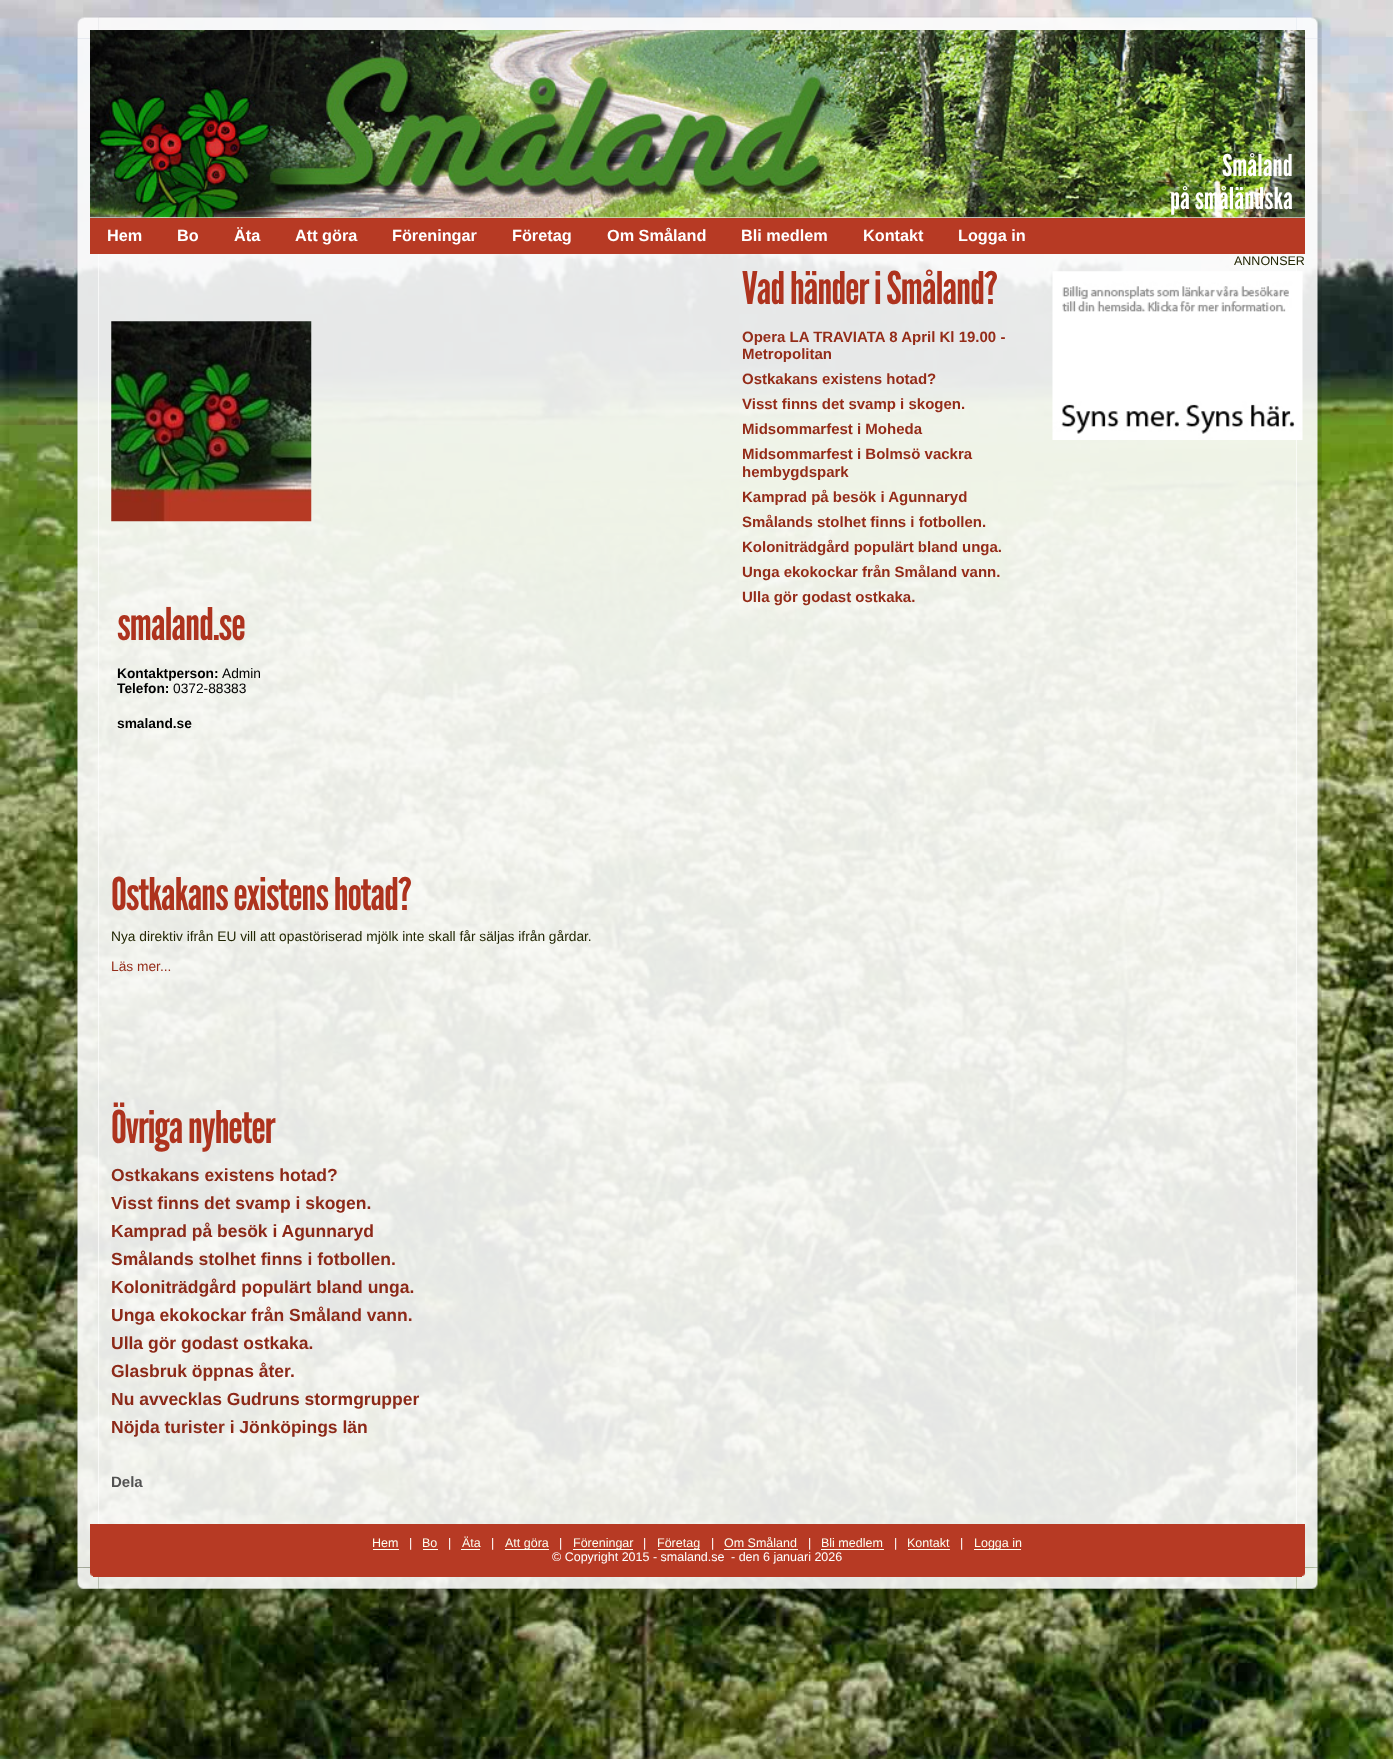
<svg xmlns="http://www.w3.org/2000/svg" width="1393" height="1759">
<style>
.a{font:30px League Gothic;fill:#fff}
.b{font:bold 16.25px Liberation Sans;fill:#fff}
.c{font:12.5px Liberation Sans;fill:#222603}
.d{font:45px League Gothic;letter-spacing:-1.25px;fill:#ae331e}
.e{font:bold 15px Liberation Sans;fill:#942c19}
.f{font:bold 13.75px Liberation Sans;fill:#000}
.g{font:13.75px Liberation Sans;fill:#000}
.h{font:13.75px Liberation Sans;fill:#222603}
.i{font:13.75px Liberation Sans;fill:#942c19}
.j{font:bold 17.5px Liberation Sans;fill:#8c2918}
.k{font:bold 15px Liberation Sans;fill:#525252}
.l{font:12.5px Liberation Sans;fill:#fcfef1}
.m{font:12.5px Liberation Sans;fill:#fff}
</style>
<rect width="100%" height="100%" fill="#fff"/>
<image href="1.png" x="0" y="0" width="1393" height="1759"/>
<image href="2.png" x="77" y="17" width="22" height="22"/>
<image href="3.png" x="99" y="16" width="1197" height="14"/>
<image href="4.png" x="1296" y="17" width="26" height="22"/>
<image href="13.png" x="77" y="1567" width="22" height="26"/>
<image href="5.png" x="76" y="39" width="23" height="1529"/>
<image href="15.png" x="1296" y="1567" width="26" height="26"/>
<image href="12.png" x="1296" y="39" width="26" height="1529"/>
<path fill="#fefefee6" d="M98 217h1199v1307H98z"/>
<image href="7.png" x="90" y="217" width="1215" height="1"/>
<image href="6.png" x="90" y="30" width="1215" height="188"/>
<path fill="#b73a24" d="M1044 218h261v36H1044z"/>
<path fill="#b73a24" d="M90 218h954v36H90z"/>
<image href="8.png" x="1052" y="271" width="251" height="169"/>
<image href="9.png" x="111" y="321" width="201" height="201"/>
<path fill="#b73a24" d="M90 1524h1215v49H90z"/>
<path fill="#fcfef1" d="M373 1549h26v1H373z"/>
<path fill="#fcfef1" d="M423 1549h15v1H423z"/>
<path fill="#fcfef1" d="M461 1549h19v1H461z"/>
<path fill="#fcfef1" d="M505 1549h44v1H505z"/>
<path fill="#fcfef1" d="M573 1549h60v1H573z"/>
<path fill="#fcfef1" d="M658 1549h42v1H658z"/>
<path fill="#fcfef1" d="M724 1549h74v1H724z"/>
<path fill="#fcfef1" d="M821 1549h63v1H821z"/>
<path fill="#fcfef1" d="M908 1549h42v1H908z"/>
<path fill="#fcfef1" d="M974 1549h47v1H974z"/>
<image href="10.png" x="90" y="1573" width="3" height="4"/>
<path fill="#b73a24" d="M93 1573h1209v4H93z"/>
<image href="11.png" x="1302" y="1573" width="3" height="4"/>
<image href="14.png" x="98" y="1577" width="1199" height="17"/>
<text class="a" x="1222" y="176">Småland</text>
<text class="a" x="1170" y="209">på småländska</text>
<text class="b" x="107" y="241">Hem</text>
<text class="b" x="177" y="241">Bo</text>
<text class="b" x="234" y="241">Äta</text>
<text class="b" x="295" y="241">Att göra</text>
<text class="b" x="392" y="241">Föreningar</text>
<text class="b" x="512" y="241">Företag</text>
<text class="b" x="607" y="241">Om Småland</text>
<text class="b" x="741" y="241">Bli medlem</text>
<text class="b" x="863" y="241">Kontakt</text>
<text class="b" x="958" y="241">Logga in</text>
<text class="c" x="1234" y="265">ANNONSER</text>
<text class="d" x="742" y="304">Vad händer i Småland?</text>
<text class="e" x="742" y="342">Opera LA TRAVIATA 8 April Kl 19.00 -</text>
<text class="e" x="742" y="359">Metropolitan</text>
<text class="e" x="742" y="384">Ostkakans existens hotad?</text>
<text class="e" x="742" y="409">Visst finns det svamp i skogen.</text>
<text class="e" x="742" y="434">Midsommarfest i Moheda</text>
<text class="e" x="742" y="459">Midsommarfest i Bolmsö vackra</text>
<text class="e" x="742" y="477">hembygdspark</text>
<text class="e" x="742" y="502">Kamprad på besök i Agunnaryd</text>
<text class="e" x="742" y="527">Smålands stolhet finns i fotbollen.</text>
<text class="e" x="742" y="552">Koloniträdgård populärt bland unga.</text>
<text class="e" x="742" y="577">Unga ekokockar från Småland vann.</text>
<text class="e" x="742" y="602">Ulla gör godast ostkaka.</text>
<text class="d" x="117" y="640">smaland.se</text>
<text class="f" x="117" y="678">Kontaktperson:</text>
<text class="g" x="222" y="678">Admin</text>
<text class="f" x="117" y="693">Telefon:</text>
<text class="g" x="173" y="693">0372-88383</text>
<text class="f" x="117" y="728">smaland.se</text>
<text class="d" x="111" y="910">Ostkakans existens hotad?</text>
<text class="h" x="111" y="941">Nya direktiv ifrån EU vill att opastöriserad mjölk inte skall får säljas ifrån gårdar.</text>
<text class="i" x="111" y="971">Läs mer...</text>
<text class="d" x="111" y="1143">Övriga nyheter</text>
<text class="j" x="111" y="1181">Ostkakans existens hotad?</text>
<text class="j" x="111" y="1209">Visst finns det svamp i skogen.</text>
<text class="j" x="111" y="1237">Kamprad på besök i Agunnaryd</text>
<text class="j" x="111" y="1265">Smålands stolhet finns i fotbollen.</text>
<text class="j" x="111" y="1293">Koloniträdgård populärt bland unga.</text>
<text class="j" x="111" y="1321">Unga ekokockar från Småland vann.</text>
<text class="j" x="111" y="1349">Ulla gör godast ostkaka.</text>
<text class="j" x="111" y="1377">Glasbruk öppnas åter.</text>
<text class="j" x="111" y="1405">Nu avvecklas Gudruns stormgrupper</text>
<text class="j" x="111" y="1433">Nöjda turister i Jönköpings län</text>
<text class="k" x="111" y="1487">Dela</text>
<text class="l" x="372" y="1547">Hem</text>
<text class="m" x="409" y="1547">|</text>
<text class="l" x="422" y="1547">Bo</text>
<text class="m" x="448" y="1547">|</text>
<text class="l" x="462" y="1547">Äta</text>
<text class="m" x="491" y="1547">|</text>
<text class="l" x="505" y="1547">Att göra</text>
<text class="m" x="559" y="1547">|</text>
<text class="l" x="573" y="1547">Föreningar</text>
<text class="m" x="643" y="1547">|</text>
<text class="l" x="657" y="1547">Företag</text>
<text class="m" x="711" y="1547">|</text>
<text class="l" x="724" y="1547">Om Småland</text>
<text class="m" x="808" y="1547">|</text>
<text class="l" x="821" y="1547">Bli medlem</text>
<text class="m" x="894" y="1547">|</text>
<text class="l" x="907" y="1547">Kontakt</text>
<text class="m" x="960" y="1547">|</text>
<text class="l" x="974" y="1547">Logga in</text>
<text class="m" x="552" y="1561">© Copyright 2015 - smaland.se</text>
<text class="m" x="731" y="1561">- den 6 januari 2026</text>
</svg>
